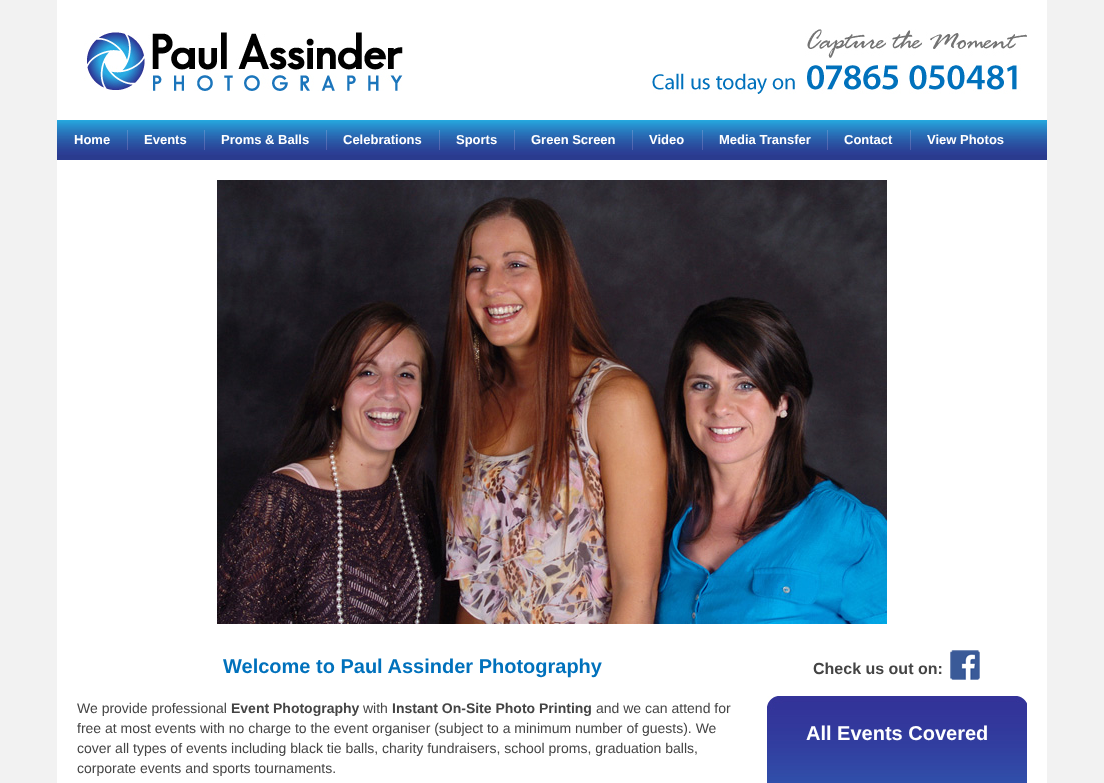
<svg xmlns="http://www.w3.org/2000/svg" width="1104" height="783">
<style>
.a{font:bold 13px Liberation Sans;fill:#fff}
.b{font:bold 20px Liberation Sans;fill:#0071bc}
.c{font:14px Liberation Sans;fill:#444}
.d{font:bold 14px Liberation Sans;fill:#444}
.e{font:bold 16px Liberation Sans;fill:#444}
.f{font:bold 20px Liberation Sans;fill:#fff}
</style>
<rect width="100%" height="100%" fill="#f2f2f2"/>
<path fill="#fff" d="M57 0h990v120H57z"/>
<image href="1.png" x="84" y="32" width="319" height="59"/>
<image href="2.png" x="652" y="29" width="375" height="65"/>
<path fill="#2a3b8e" d="M57 155h990v5H57z"/>
<image href="3.png" x="57" y="120" width="990" height="35"/>
<image href="4.png" x="127" y="130" width="1" height="20"/>
<image href="4.png" x="204" y="130" width="1" height="20"/>
<image href="4.png" x="326" y="130" width="1" height="20"/>
<image href="4.png" x="439" y="130" width="1" height="20"/>
<image href="4.png" x="514" y="130" width="1" height="20"/>
<image href="4.png" x="632" y="130" width="1" height="20"/>
<image href="4.png" x="702" y="130" width="1" height="20"/>
<image href="4.png" x="827" y="130" width="1" height="20"/>
<image href="4.png" x="910" y="130" width="1" height="20"/>
<path fill="#fff" d="M57 160h990v623H57z"/>
<image href="5.png" x="217" y="180" width="670" height="444"/>
<image href="6.png" x="950" y="650" width="30" height="30"/>
<image href="7.png" x="767" y="696" width="260" height="87"/>
<text class="a" x="74" y="144">Home</text>
<text class="a" x="144" y="144">Events</text>
<text class="a" x="221" y="144">Proms &amp; Balls</text>
<text class="a" x="343" y="144">Celebrations</text>
<text class="a" x="456" y="144">Sports</text>
<text class="a" x="531" y="144">Green Screen</text>
<text class="a" x="649" y="144">Video</text>
<text class="a" x="719" y="144">Media Transfer</text>
<text class="a" x="844" y="144">Contact</text>
<text class="a" x="927" y="144">View Photos</text>
<text class="b" x="223" y="673">Welcome to Paul Assinder Photography</text>
<text class="c" x="77" y="713">We provide professional</text>
<text class="d" x="231" y="713">Event Photography</text>
<text class="c" x="363" y="713">with</text>
<text class="d" x="392" y="713">Instant On-Site Photo Printing</text>
<text class="c" x="596" y="713">and we can attend for</text>
<text class="c" x="77" y="733">free at most events with no charge to the event organiser (subject to a minimum number of guests). We</text>
<text class="c" x="77" y="753">cover all types of events including black tie balls, charity fundraisers, school proms, graduation balls,</text>
<text class="c" x="77" y="773">corporate events and sports tournaments.</text>
<text class="e" x="813" y="674">Check us out on:</text>
<text class="f" x="806" y="740">All Events Covered</text>
</svg>
